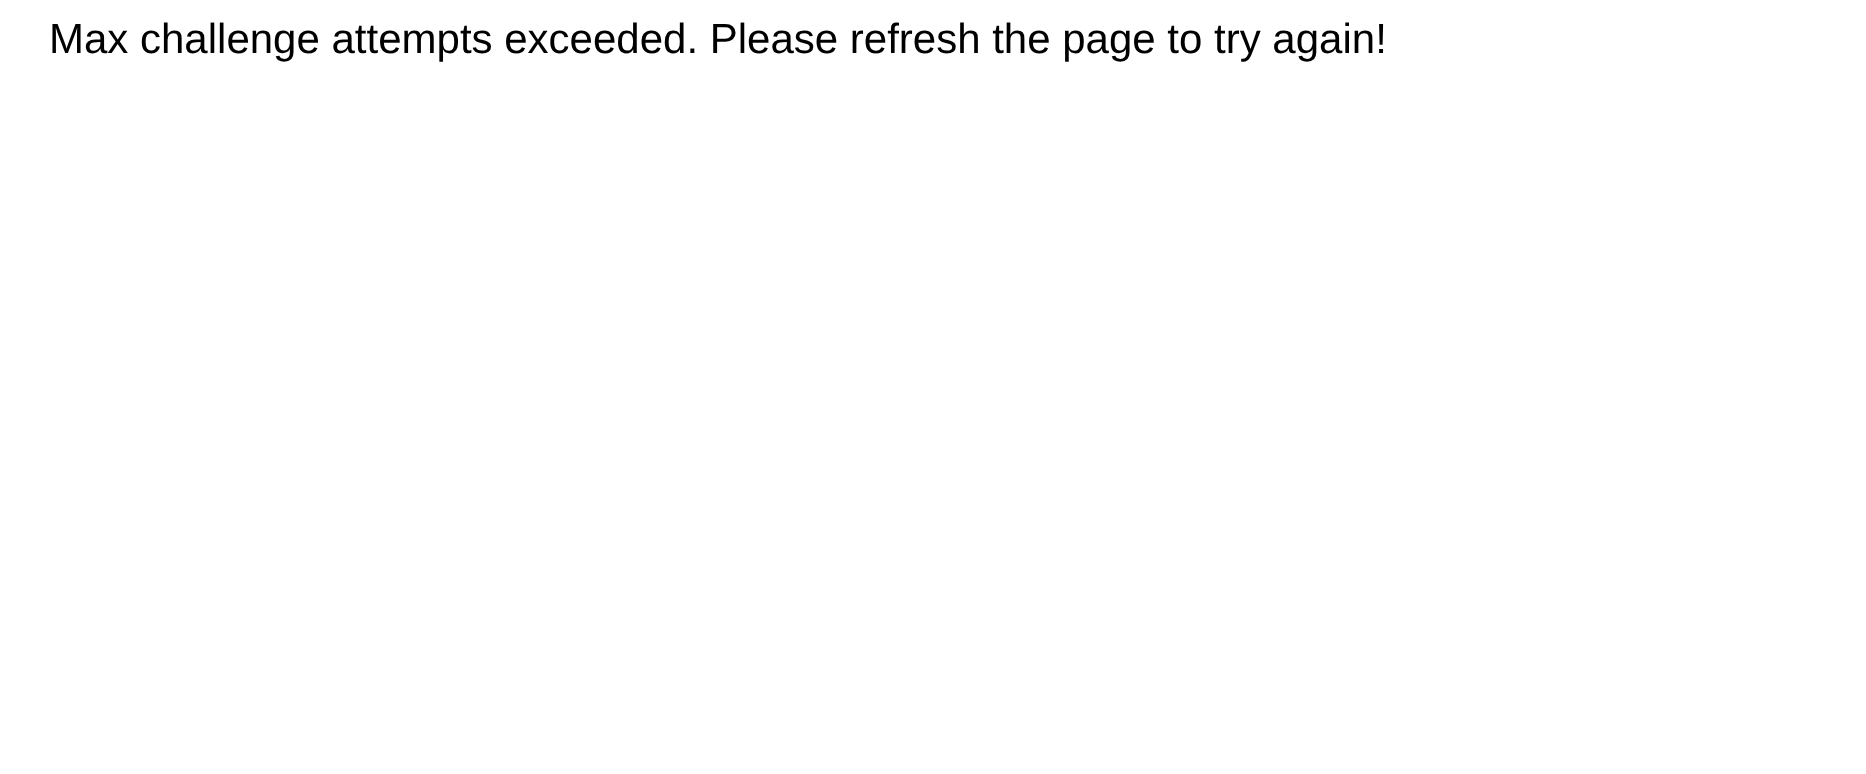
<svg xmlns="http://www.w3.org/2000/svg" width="1866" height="774">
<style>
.a{font:42px Liberation Sans;fill:#000}
</style>
<rect width="100%" height="100%" fill="#fff"/>
<text class="a" x="49" y="53">Max challenge attempts exceeded. Please refresh the page to try again!</text>
</svg>
